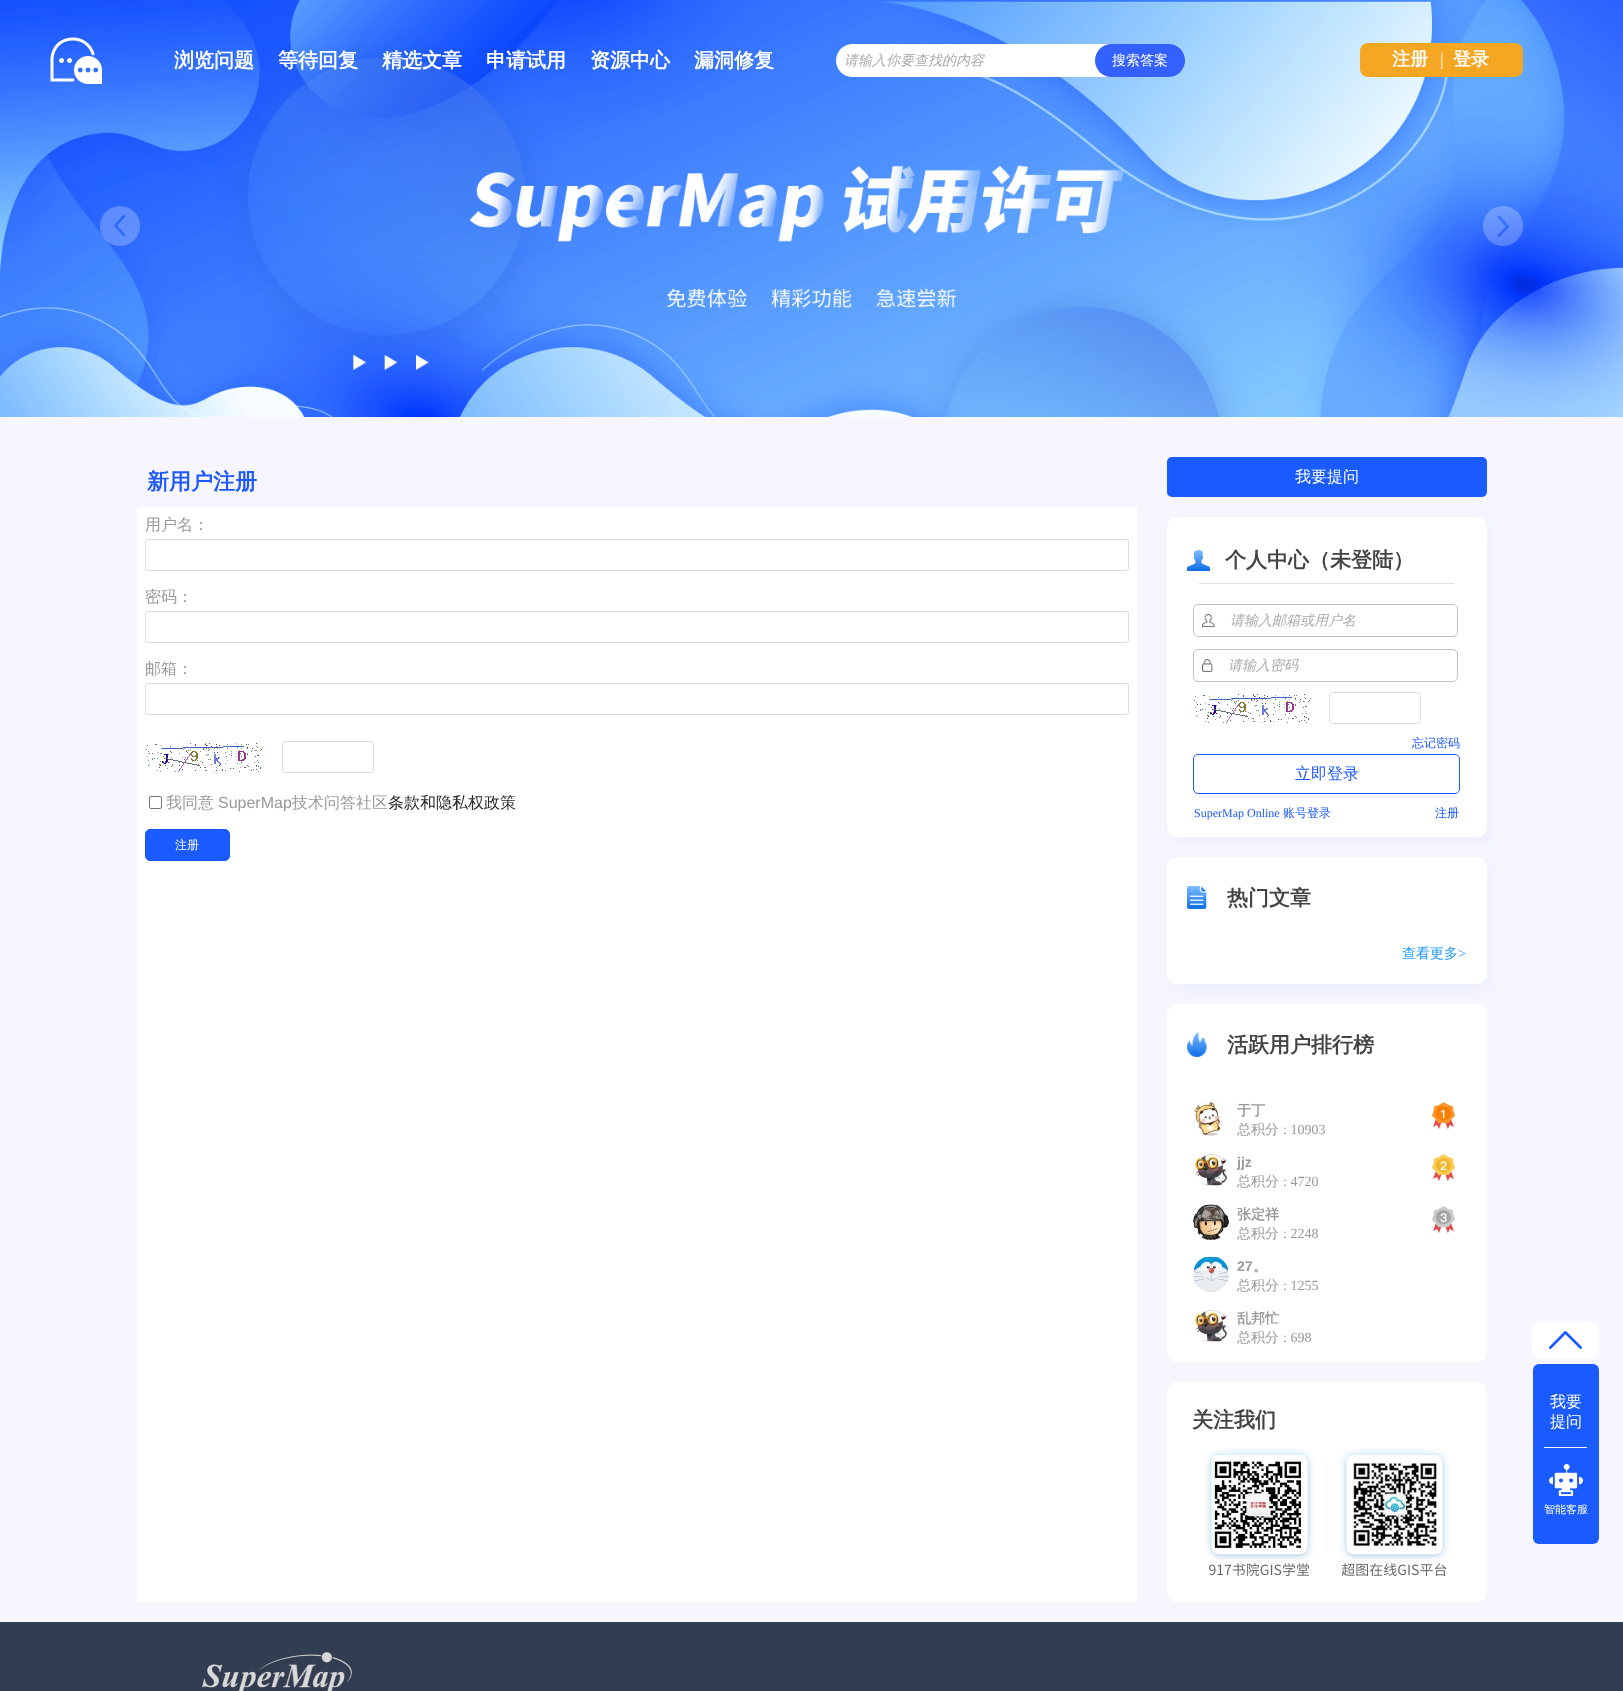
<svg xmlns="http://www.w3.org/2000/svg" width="1623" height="1691">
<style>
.a{font:bold 20px WenQuanYi Zen Hei;fill:#fff}
.b{font:italic 500 14px WenQuanYi Zen Hei;fill:#aaa}
.c{font:500 14px WenQuanYi Zen Hei;fill:#fff}
.d{font:bold 18px WenQuanYi Zen Hei;fill:#fff}
.e{font:18px Liberation Serif;fill:#fff}
.f{font:bold 22px WenQuanYi Zen Hei;fill:#1e59ff}
.g{font:500 16px WenQuanYi Zen Hei;fill:#999}
.h{font:16px Liberation Sans;fill:#999}
.i{font:500 16px WenQuanYi Zen Hei;fill:#282828}
.j{font:500 12px WenQuanYi Zen Hei;fill:#fff}
.k{font:500 16px WenQuanYi Zen Hei;fill:#fff}
.l{font:bold 21px WenQuanYi Zen Hei;fill:#444}
.m{font:500 12px WenQuanYi Zen Hei;fill:#1e59ff}
.n{font:500 16px WenQuanYi Zen Hei;fill:#1e59ff}
.o{font:12px Liberation Serif;fill:#1e59ff}
.p{font:500 14px WenQuanYi Zen Hei;fill:#1e99ff}
.q{font:14px Liberation Serif;fill:#1e99ff}
.r{font:bold 14px WenQuanYi Zen Hei;fill:#999}
.s{font:500 14px WenQuanYi Zen Hei;fill:#999}
.t{font:14px Liberation Serif;fill:#999}
.u{font:bold 14px Liberation Sans;fill:#999}
.v{font:500 11px WenQuanYi Zen Hei;fill:#fff}
</style>
<rect width="100%" height="100%" fill="#fff"/>
<image href="1.png" x="0" y="0" width="1623" height="417"/>
<image href="2.png" x="100" y="206" width="40" height="40"/>
<image href="3.png" x="1483" y="206" width="40" height="40"/>
<image href="4.png" x="50" y="37" width="52" height="47"/>
<rect fill="#fff" x="836" y="44" width="348" height="33" rx="16.5"/>
<rect fill="#3460ff" x="1095" y="44" width="90" height="33" rx="16.5"/>
<rect fill="#f5a623" x="1360" y="43" width="163" height="34" rx="8"/>
<path fill="#f7f6fe" d="M0 417h1623v1205H0z"/>
<path fill="#fff" d="M137 507h1000v1095H137z"/>
<rect fill="none" stroke="#ddd" x="145.5" y="539.5" width="983" height="31" rx="2.5"/>
<rect fill="none" stroke="#ddd" x="145.5" y="611.5" width="983" height="31" rx="2.5"/>
<rect fill="none" stroke="#ddd" x="145.5" y="683.5" width="983" height="31" rx="2.5"/>
<image href="5.png" x="146" y="743" width="117" height="29"/>
<rect fill="none" stroke="#ddd" x="282.5" y="741.5" width="91" height="31" rx="2.5"/>
<rect fill="none" stroke="#767676" x="149.5" y="796.5" width="12" height="12" rx="1.5"/>
<rect fill="#1a5bff" stroke="#1a5bff" x="145.5" y="829.5" width="84" height="31" rx="4.5"/>
<rect fill="#1a5bff" x="1167" y="457" width="320" height="40" rx="5"/>
<rect fill="#1e59ff0d" filter="blur(8px)" x="1172" y="524" width="320" height="320" rx="10"/>
<rect fill="#fff" x="1167" y="517" width="320" height="320" rx="10"/>
<image href="6.png" x="1187" y="550" width="23" height="21"/>
<path fill="#e1e1e1" d="M1199 583h255v1H1199z"/>
<rect fill="none" stroke="#c2c2c2" x="1193.5" y="604.5" width="264" height="32" rx="4.5"/>
<image href="7.png" x="1202" y="614" width="13" height="13"/>
<rect fill="none" stroke="#c2c2c2" x="1193.5" y="649.5" width="264" height="32" rx="4.5"/>
<image href="8.png" x="1202" y="659" width="11" height="13"/>
<image href="5.png" x="1194" y="694" width="117" height="29"/>
<rect fill="none" stroke="#ddd" x="1329.5" y="692.5" width="91" height="31" rx="2.5"/>
<rect fill="none" stroke="#1a5bff" x="1193.5" y="754.5" width="266" height="39" rx="4.5"/>
<rect fill="#1e59ff0d" filter="blur(8px)" x="1172" y="864" width="320" height="127" rx="10"/>
<rect fill="#fff" x="1167" y="857" width="320" height="127" rx="10"/>
<image href="9.png" x="1187" y="886" width="20" height="23"/>
<rect fill="#fff" x="1167" y="1004" width="320" height="358" rx="10"/>
<image href="10.png" x="1187" y="1032" width="20" height="25"/>
<image href="11.png" x="1193" y="1100" width="32" height="36"/>
<image href="12.png" x="1432" y="1102" width="23" height="27"/>
<image href="13.png" x="1193" y="1152" width="36" height="36"/>
<image href="14.png" x="1432" y="1154" width="23" height="27"/>
<image href="15.png" x="1193" y="1204" width="36" height="36"/>
<image href="16.png" x="1432" y="1206" width="23" height="27"/>
<image href="17.png" x="1193" y="1256" width="36" height="36"/>
<image href="13.png" x="1193" y="1308" width="36" height="36"/>
<rect fill="#fff" x="1167" y="1382" width="320" height="220" rx="10"/>
<image href="18.png" x="1204" y="1448" width="123" height="128"/>
<image href="19.png" x="1327" y="1448" width="123" height="128"/>
<path fill="#333d51" d="M0 1622h1623v69H0z"/>
<image href="20.png" x="202" y="1652" width="150" height="39"/>
<rect fill="#fff" x="1532" y="1322" width="67" height="37" rx="8"/>
<image href="21.png" x="1549" y="1331" width="33" height="18"/>
<rect fill="#1a5bff" x="1533" y="1364" width="66" height="180" rx="6"/>
<rect fill="#fff" x="1544" y="1447" width="43" height="1" rx="0.5"/>
<image href="22.png" x="1549" y="1464" width="34" height="32"/>
<text class="a" x="174" y="67">浏览问题</text>
<text class="a" x="278" y="67">等待回复</text>
<text class="a" x="382" y="67">精选文章</text>
<text class="a" x="486" y="67">申请试用</text>
<text class="a" x="590" y="67">资源中心</text>
<text class="a" x="694" y="67">漏洞修复</text>
<text class="b" x="844" y="65">请输入你要查找的内容</text>
<text class="c" x="1112" y="65">搜索答案</text>
<text class="d" x="1392" y="65">注册</text>
<text class="e" x="1440" y="65">|</text>
<text class="d" x="1453" y="65">登录</text>
<text class="f" x="147" y="489">新用户注册</text>
<text class="g" x="145" y="530">用户名：</text>
<text class="g" x="145" y="602">密码：</text>
<text class="g" x="145" y="674">邮箱：</text>
<text class="g" x="166" y="808">我同意</text>
<text class="h" x="218" y="808">SuperMap</text>
<text class="g" x="292" y="808">技术问答社区</text>
<text class="i" x="388" y="808">条款和隐私权政策</text>
<text class="j" x="175" y="849">注册</text>
<text class="k" x="1295" y="482">我要提问</text>
<text class="l" x="1225" y="567">个人中心（未登陆）</text>
<text class="b" x="1230" y="625">请输入邮箱或用户名</text>
<text class="b" x="1228" y="670">请输入密码</text>
<text class="m" x="1412" y="747">忘记密码</text>
<text class="n" x="1295" y="779">立即登录</text>
<text class="o" x="1194" y="817">SuperMap Online</text>
<text class="m" x="1283" y="817">账号登录</text>
<text class="m" x="1435" y="817">注册</text>
<text class="l" x="1227" y="905">热门文章</text>
<text class="p" x="1402" y="958">查看更多</text>
<text class="q" x="1458" y="958">&gt;</text>
<text class="l" x="1227" y="1052">活跃用户排行榜</text>
<text class="r" x="1237" y="1115">于丁</text>
<text class="s" x="1237" y="1134">总积分</text>
<text class="t" x="1283" y="1134">: 10903</text>
<text class="u" x="1237" y="1167">jjz</text>
<text class="s" x="1237" y="1186">总积分</text>
<text class="t" x="1283" y="1186">: 4720</text>
<text class="r" x="1237" y="1219">张定祥</text>
<text class="s" x="1237" y="1238">总积分</text>
<text class="t" x="1283" y="1238">: 2248</text>
<text class="u" x="1237" y="1271">27</text>
<text class="r" x="1253" y="1271">。</text>
<text class="s" x="1237" y="1290">总积分</text>
<text class="t" x="1283" y="1290">: 1255</text>
<text class="r" x="1237" y="1323">乱邦忙</text>
<text class="s" x="1237" y="1342">总积分</text>
<text class="t" x="1283" y="1342">: 698</text>
<text class="l" x="1192" y="1427">关注我们</text>
<text class="k" x="1550" y="1407">我要</text>
<text class="k" x="1550" y="1427">提问</text>
<text class="v" x="1544" y="1513">智能客服</text>
</svg>
